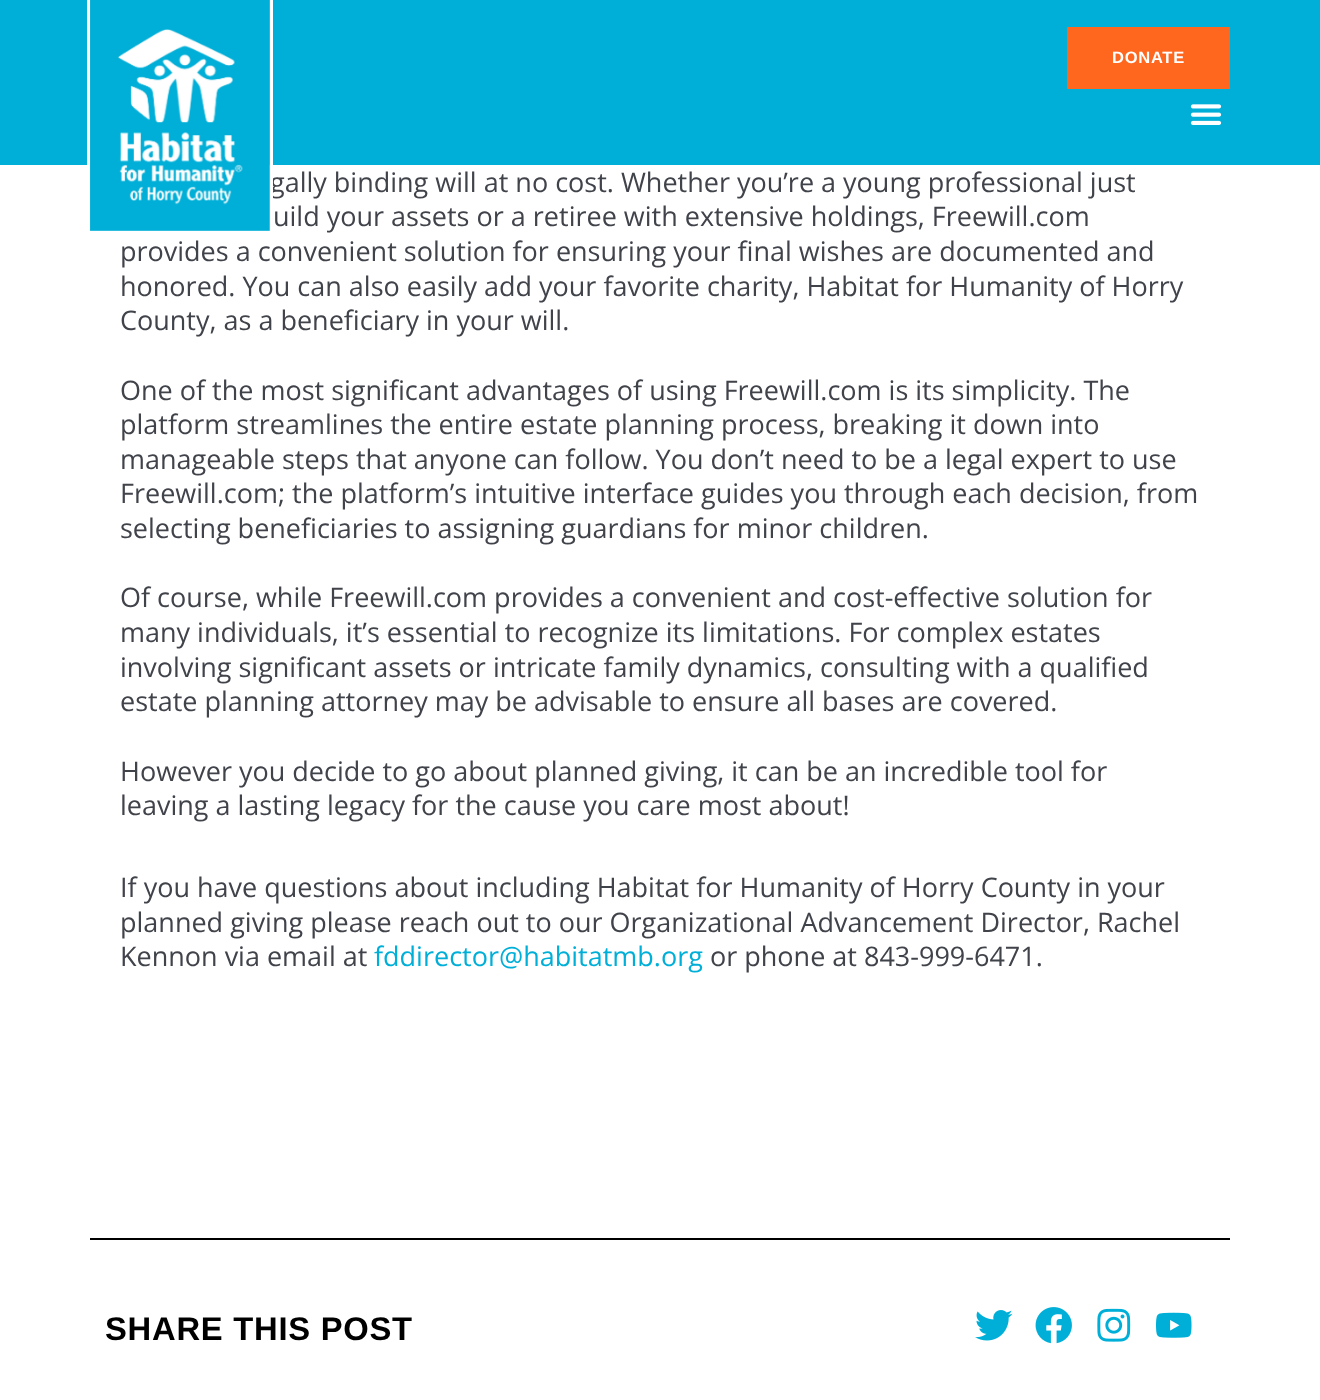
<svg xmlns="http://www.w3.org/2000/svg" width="1320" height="1400">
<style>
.a{font:bold 16.5px Liberation Sans;letter-spacing:0.75px;fill:#fff}
.b{font:27px Open Sans;fill:#41434b}
.c{font:27px Open Sans;fill:#00afd7}
.d{font:bold 32.75px Liberation Sans;letter-spacing:0.75px;fill:#000}
</style>
<rect width="100%" height="100%" fill="#fff"/>
<path fill="#00afd7" d="M0 0h1320v165H0z"/>
<path fill="#ff671f" d="M1067 27h163v62H1067z"/>
<image href="2.png" x="1190" y="104" width="32" height="21"/>
<path fill="#000" d="M90 1238h1140v2H90z"/>
<image href="3.png" x="975" y="1310" width="38" height="31"/>
<image href="4.png" x="1035" y="1307" width="37" height="37"/>
<image href="5.png" x="1097" y="1308" width="34" height="34"/>
<image href="6.png" x="1156" y="1312" width="36" height="26"/>
<text class="a" x="1112" y="63">DONATE</text>
<text class="b" x="270" y="192">gally binding will at no cost. Whether you’re a young professional just</text>
<path fill="none" stroke="#fff" stroke-width="3" d="M88.5 -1.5h183v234H88.5z"/>
<image href="1.png" x="90" y="0" width="180" height="231"/>
<text class="b" x="273" y="226">uild your assets or a retiree with extensive holdings, Freewill.com</text>
<text class="b" x="120" y="261">provides a convenient solution for ensuring your final wishes are documented and</text>
<text class="b" x="120" y="296">honored. You can also easily add your favorite charity, Habitat for Humanity of Horry</text>
<text class="b" x="120" y="330">County, as a beneficiary in your will.</text>
<text class="b" x="120" y="400">One of the most significant advantages of using Freewill.com is its simplicity. The</text>
<text class="b" x="120" y="434">platform streamlines the entire estate planning process, breaking it down into</text>
<text class="b" x="120" y="469">manageable steps that anyone can follow. You don’t need to be a legal expert to use</text>
<text class="b" x="120" y="503">Freewill.com; the platform’s intuitive interface guides you through each decision, from</text>
<text class="b" x="120" y="538">selecting beneficiaries to assigning guardians for minor children.</text>
<text class="b" x="120" y="607">Of course, while Freewill.com provides a convenient and cost-effective solution for</text>
<text class="b" x="120" y="642">many individuals, it’s essential to recognize its limitations. For complex estates</text>
<text class="b" x="120" y="677">involving significant assets or intricate family dynamics, consulting with a qualified</text>
<text class="b" x="120" y="711">estate planning attorney may be advisable to ensure all bases are covered.</text>
<text class="b" x="120" y="781">However you decide to go about planned giving, it can be an incredible tool for</text>
<text class="b" x="120" y="815">leaving a lasting legacy for the cause you care most about!</text>
<text class="b" x="120" y="897">If you have questions about including Habitat for Humanity of Horry County in your</text>
<text class="b" x="120" y="932">planned giving please reach out to our Organizational Advancement Director, Rachel</text>
<text class="b" x="120" y="966">Kennon via email at</text>
<text class="c" x="374" y="966">fddirector@habitatmb.org</text>
<text class="b" x="710" y="966">or phone at 843-999-6471.</text>
<text class="d" x="105" y="1340">SHARE THIS POST</text>
</svg>
